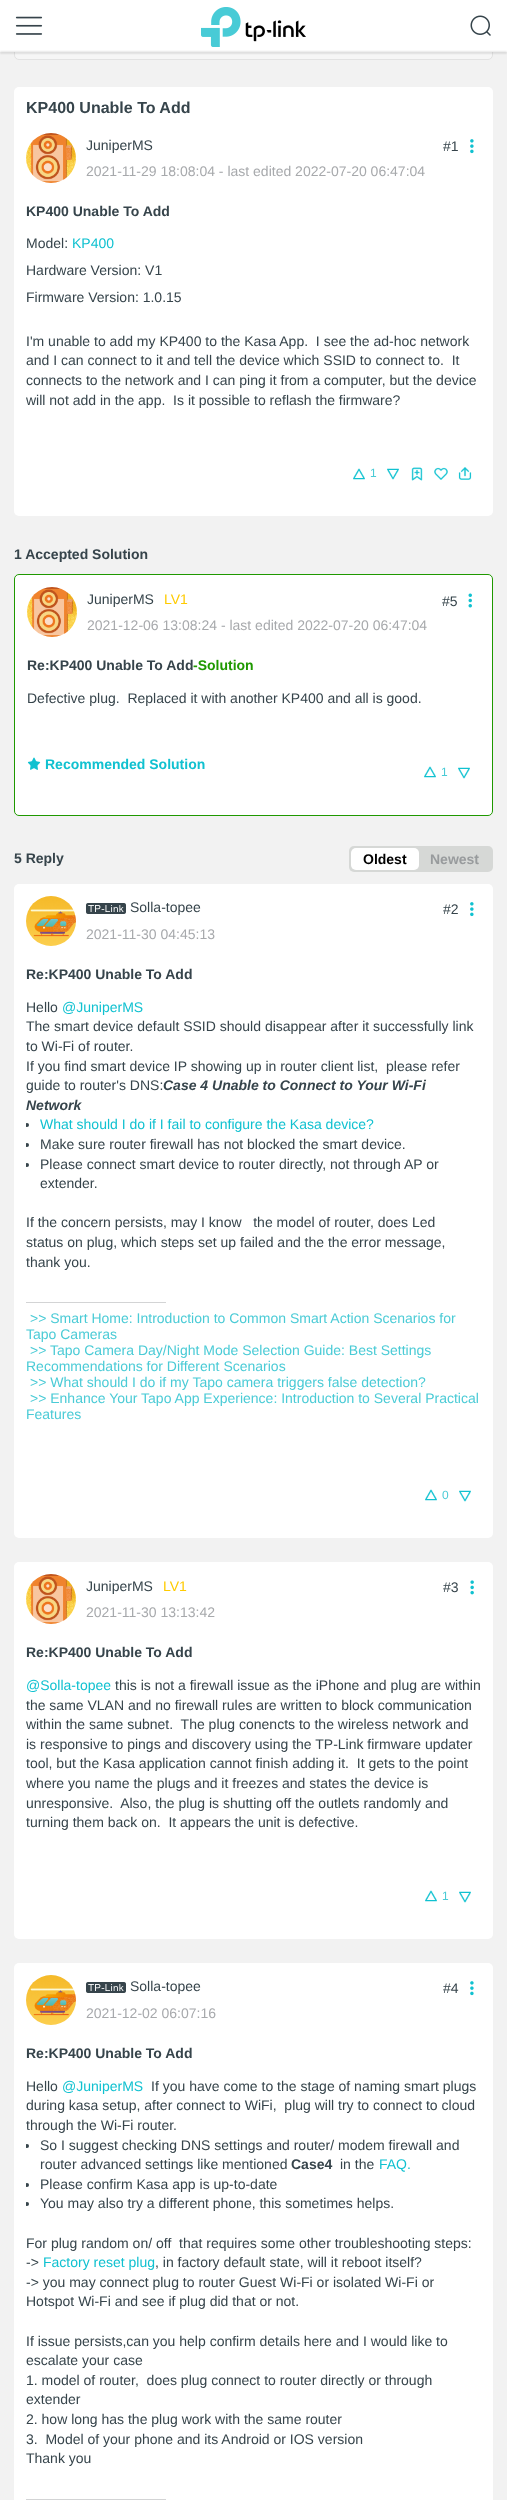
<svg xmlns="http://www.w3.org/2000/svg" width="507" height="2500">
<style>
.a{font:bold 16px Liberation Sans;fill:#36444b}
.b{font:14px Liberation Sans;fill:#36444b}
.c{font:14px Liberation Sans;fill:#a7a9ac}
.d{font:bold 14px Liberation Sans;fill:#36444b}
.e{font:14px Liberation Sans;fill:#10c1d0}
.f{font:12px Liberation Sans;fill:#4acbd6}
.g{font:14px Liberation Sans;fill:#ffcb00}
.h{font:bold 14px Liberation Sans;fill:#1f9900}
.i{font:bold 14px Liberation Sans;fill:#10c1d0}
.j{font:bold 14px Liberation Sans;fill:#000}
.k{font:bold 14px Liberation Sans;fill:#989b9d}
.l{font:italic bold 14px Liberation Sans;fill:#36444b}
.m{font:14px Liberation Sans;fill:#4acbd6}
</style>
<defs>
<clipPath id="clip1"><path d="M26 998h455v274H26z"/></clipPath>
<clipPath id="clip2"><path d="M26 2077h455v392H26z"/></clipPath>
</defs>
<rect width="100%" height="100%" fill="#f2f2f2"/>
<rect fill="#f6f6f6" stroke="#e2e2e2" x="14.5" y="11.5" width="478" height="48" rx="4.5"/>
<path fill="#fff" d="M0 0h507v52H0z"/>
<image href="1.png" x="15" y="16" width="28" height="19"/>
<image href="2.png" x="201" y="7" width="105" height="40"/>
<image href="3.png" x="470" y="15" width="21" height="21"/>
<path fill="#2121214d" filter="blur(1px)" d="M0 52h507v1H0z"/>
<rect fill="#fff" x="14" y="87" width="479" height="429" rx="5"/>
<image href="4.png" x="26" y="133" width="50" height="50"/>
<image href="5.png" x="353" y="468" width="12" height="12"/>
<image href="6.png" x="387" y="468" width="12" height="12"/>
<image href="7.png" x="411" y="467" width="12" height="14"/>
<image href="8.png" x="434" y="467" width="14" height="13"/>
<image href="9.png" x="458" y="467" width="14" height="13"/>
<image href="10.png" x="470" y="139" width="4" height="15"/>
<rect fill="#fff" stroke="#1f9900" x="14.5" y="574.5" width="478" height="241" rx="4.5"/>
<image href="11.png" x="27" y="587" width="50" height="50"/>
<image href="12.png" x="468" y="593" width="4" height="15"/>
<image href="13.png" x="27" y="757" width="14" height="13"/>
<image href="5.png" x="424" y="766" width="12" height="12"/>
<image href="6.png" x="458" y="767" width="12" height="12"/>
<rect fill="#d6d8d6" x="349" y="846" width="144" height="26" rx="5"/>
<rect fill="#fff" x="351" y="848" width="68" height="22" rx="5"/>
<rect fill="#fff" x="14" y="884" width="479" height="654" rx="5"/>
<image href="14.png" x="26" y="896" width="50" height="50"/>
<image href="15.png" x="86" y="903" width="40" height="11"/>
<image href="16.png" x="470" y="902" width="4" height="15"/>
<g clip-path="url(#clip1)">
<circle fill="#36444b" cx="27" cy="1125" r="2"/>
<circle fill="#36444b" cx="27" cy="1145" r="2"/>
<circle fill="#36444b" cx="27" cy="1165" r="2"/>
</g>
<path fill="#d3d4d5" d="M26 1302h140v1H26z"/>
<image href="5.png" x="425" y="1489" width="12" height="12"/>
<image href="6.png" x="459" y="1490" width="12" height="12"/>
<rect fill="#fff" x="14" y="1562" width="479" height="377" rx="5"/>
<image href="4.png" x="26" y="1574" width="50" height="50"/>
<image href="17.png" x="470" y="1580" width="4" height="15"/>
<image href="5.png" x="425" y="1890" width="12" height="12"/>
<image href="6.png" x="459" y="1891" width="12" height="12"/>
<rect fill="#fff" x="14" y="1963" width="479" height="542" rx="5"/>
<image href="14.png" x="26" y="1975" width="50" height="50"/>
<image href="15.png" x="86" y="1982" width="40" height="11"/>
<image href="18.png" x="470" y="1981" width="4" height="15"/>
<g clip-path="url(#clip2)">
<circle fill="#36444b" cx="27" cy="2146" r="2"/>
<circle fill="#36444b" cx="27" cy="2185" r="2"/>
<circle fill="#36444b" cx="27" cy="2204" r="2"/>
</g>
<path fill="#d3d4d5" d="M26 2499h140v1H26z"/>
<text class="a" x="26" y="113">KP400 Unable To Add</text>
<text class="b" x="86" y="150">JuniperMS</text>
<text class="c" x="86" y="176">2021-11-29 18:08:04 - last edited 2022-07-20 06:47:04</text>
<text class="d" x="26" y="216">KP400 Unable To Add</text>
<text class="b" x="26" y="248">Model:</text>
<text class="e" x="72" y="248">KP400</text>
<text class="b" x="26" y="275">Hardware Version: V1</text>
<text class="b" x="26" y="302">Firmware Version: 1.0.15</text>
<text class="b" xml:space="preserve" x="26" y="346">I'm unable to add my KP400 to the Kasa App.  I see the ad-hoc network</text>
<text class="b" xml:space="preserve" x="26" y="365">and I can connect to it and tell the device which SSID to connect to.  It</text>
<text class="b" x="26" y="385">connects to the network and I can ping it from a computer, but the device</text>
<text class="b" xml:space="preserve" x="26" y="405">will not add in the app.  Is it possible to reflash the firmware?</text>
<text class="f" x="370" y="477">1</text>
<text class="b" x="443" y="151">#1</text>
<text class="d" x="14" y="559">1 Accepted Solution</text>
<text class="b" x="87" y="604">JuniperMS</text>
<text class="g" x="164" y="604">LV1</text>
<text class="c" x="87" y="630">2021-12-06 13:08:24 - last edited 2022-07-20 06:47:04</text>
<text class="b" x="442" y="606">#5</text>
<text class="d" x="27" y="670">Re:KP400 Unable To Add</text>
<text class="h" x="193" y="670">-Solution</text>
<text class="b" xml:space="preserve" x="27" y="703">Defective plug.  Replaced it with another KP400 and all is good.</text>
<text class="i" x="45" y="769">Recommended Solution</text>
<text class="f" x="441" y="776">1</text>
<text class="d" x="14" y="863">5 Reply</text>
<text class="j" x="363" y="864">Oldest</text>
<text class="k" x="430" y="864">Newest</text>
<text class="b" x="130" y="912">Solla-topee</text>
<text class="c" x="86" y="939">2021-11-30 04:45:13</text>
<text class="b" x="443" y="914">#2</text>
<text class="d" x="26" y="979">Re:KP400 Unable To Add</text>
<text class="b" x="26" y="1012">Hello</text>
<text class="e" x="62" y="1012">@JuniperMS</text>
<text class="b" x="26" y="1031">The smart device default SSID should disappear after it successfully link</text>
<text class="b" x="26" y="1051">to Wi-Fi of router.</text>
<text class="b" xml:space="preserve" x="26" y="1071">If you find smart device IP showing up in router client list,  please refer</text>
<text class="b" x="26" y="1090">guide to router's DNS:</text>
<text class="l" x="163" y="1090">Case 4 Unable to Connect to Your Wi-Fi</text>
<text class="l" x="26" y="1110">Network</text>
<text class="e" x="40" y="1129">What should I do if I fail to configure the Kasa device?</text>
<text class="b" x="40" y="1149">Make sure router firewall has not blocked the smart device.</text>
<text class="b" x="40" y="1169">Please connect smart device to router directly, not through AP or</text>
<text class="b" x="40" y="1188">extender.</text>
<text class="b" xml:space="preserve" x="26" y="1227">If the concern persists, may I know   the model of router, does Led</text>
<text class="b" x="26" y="1247">status on plug, which steps set up failed and the the error message,</text>
<text class="b" x="26" y="1267">thank you.</text>
<text class="m" x="30" y="1323">&gt;&gt; Smart Home: Introduction to Common Smart Action Scenarios for</text>
<text class="m" x="26" y="1339">Tapo Cameras</text>
<text class="m" x="30" y="1355">&gt;&gt; Tapo Camera Day/Night Mode Selection Guide: Best Settings</text>
<text class="m" x="26" y="1371">Recommendations for Different Scenarios</text>
<text class="m" x="30" y="1387">&gt;&gt; What should I do if my Tapo camera triggers false detection?</text>
<text class="m" x="30" y="1403">&gt;&gt; Enhance Your Tapo App Experience: Introduction to Several Practical</text>
<text class="m" x="26" y="1419">Features</text>
<text class="f" x="442" y="1499">0</text>
<text class="b" x="86" y="1591">JuniperMS</text>
<text class="g" x="163" y="1591">LV1</text>
<text class="c" x="86" y="1617">2021-11-30 13:13:42</text>
<text class="b" x="443" y="1592">#3</text>
<text class="d" x="26" y="1657">Re:KP400 Unable To Add</text>
<text class="e" x="26" y="1690">@Solla-topee</text>
<text class="b" x="115" y="1690">this is not a firewall issue as the iPhone and plug are within</text>
<text class="b" x="26" y="1710">the same VLAN and no firewall rules are written to block communication</text>
<text class="b" xml:space="preserve" x="26" y="1729">within the same subnet.  The plug conencts to the wireless network and</text>
<text class="b" x="26" y="1749">is responsive to pings and discovery using the TP-Link firmware updater</text>
<text class="b" xml:space="preserve" x="26" y="1768">tool, but the Kasa application cannot finish adding it.  It gets to the point</text>
<text class="b" x="26" y="1788">where you name the plugs and it freezes and states the device is</text>
<text class="b" xml:space="preserve" x="26" y="1808">unresponsive.  Also, the plug is shutting off the outlets randomly and</text>
<text class="b" xml:space="preserve" x="26" y="1827">turning them back on.  It appears the unit is defective.</text>
<text class="f" x="442" y="1900">1</text>
<text class="b" x="130" y="1991">Solla-topee</text>
<text class="c" x="86" y="2018">2021-12-02 06:07:16</text>
<text class="b" x="443" y="1993">#4</text>
<text class="d" x="26" y="2058">Re:KP400 Unable To Add</text>
<text class="b" x="26" y="2091">Hello</text>
<text class="e" x="62" y="2091">@JuniperMS</text>
<text class="b" x="151" y="2091">If you have come to the stage of naming smart plugs</text>
<text class="b" xml:space="preserve" x="26" y="2110">during kasa setup, after connect to WiFi,  plug will try to connect to cloud</text>
<text class="b" x="26" y="2130">through the Wi-Fi router.</text>
<text class="b" x="40" y="2150">So I suggest checking DNS settings and router/ modem firewall and</text>
<text class="b" x="40" y="2169">router advanced settings like mentioned</text>
<text class="d" x="291" y="2169">Case4</text>
<text class="b" x="340" y="2169">in the</text>
<text class="e" x="379" y="2169">FAQ.</text>
<text class="b" x="40" y="2189">Please confirm Kasa app is up-to-date</text>
<text class="b" x="40" y="2208">You may also try a different phone, this sometimes helps.</text>
<text class="b" xml:space="preserve" x="26" y="2248">For plug random on/ off  that requires some other troubleshooting steps:</text>
<text class="b" x="26" y="2267">-&gt;</text>
<text class="e" x="43" y="2267">Factory reset plug</text>
<text class="b" x="155" y="2267">, in factory default state, will it reboot itself?</text>
<text class="b" x="26" y="2287">-&gt; you may connect plug to router Guest Wi-Fi or isolated Wi-Fi or</text>
<text class="b" x="26" y="2306">Hotspot Wi-Fi and see if plug did that or not.</text>
<text class="b" x="26" y="2346">If issue persists,can you help confirm details here and I would like to</text>
<text class="b" x="26" y="2365">escalate your case</text>
<text class="b" xml:space="preserve" x="26" y="2385">1. model of router,  does plug connect to router directly or through</text>
<text class="b" x="26" y="2404">extender</text>
<text class="b" x="26" y="2424">2. how long has the plug work with the same router</text>
<text class="b" xml:space="preserve" x="26" y="2444">3.  Model of your phone and its Android or IOS version</text>
<text class="b" x="26" y="2463">Thank you</text>
</svg>
